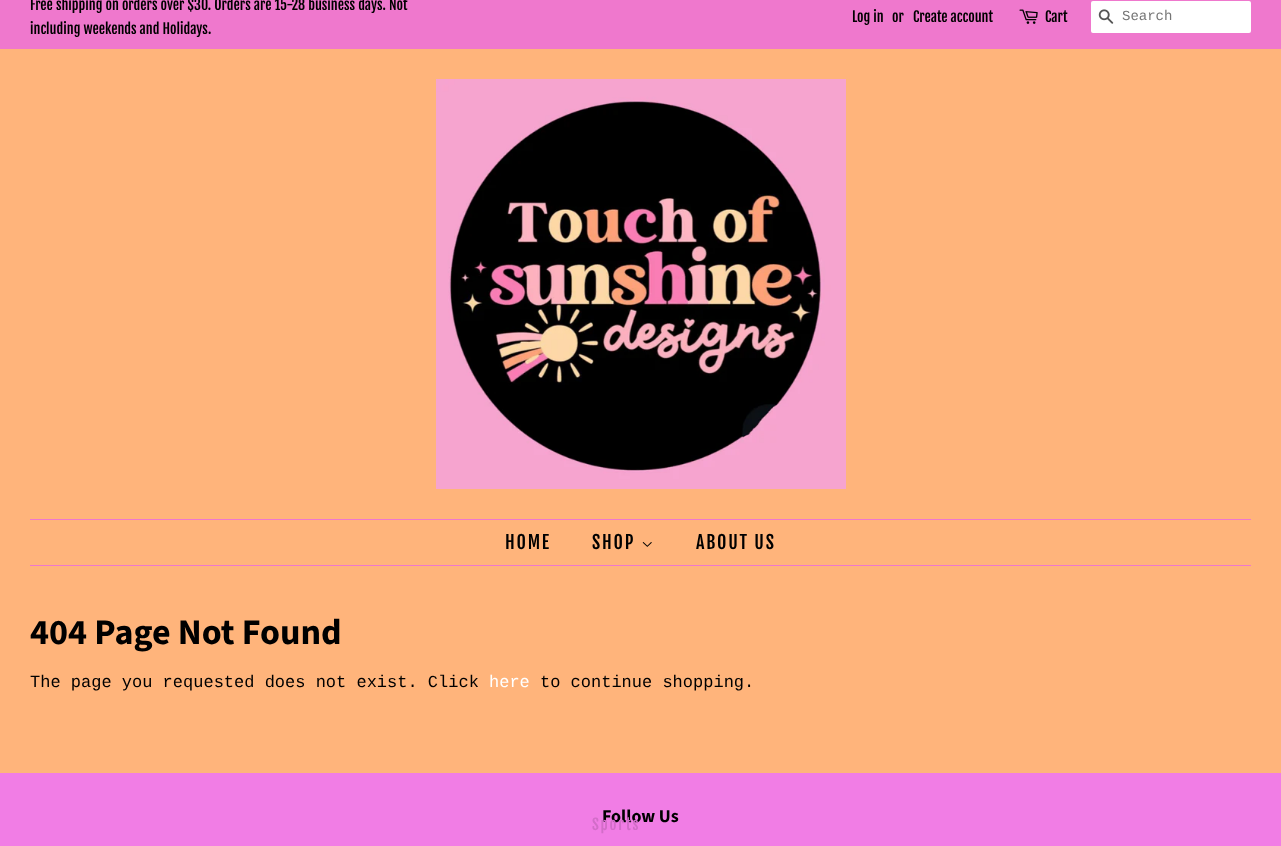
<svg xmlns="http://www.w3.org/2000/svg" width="1281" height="846">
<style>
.a{font:14px Fjalla One;fill:#000}
.b{font:14px Liberation Mono;fill:#757575}
.c{font:18px Fjalla One;letter-spacing:1.75px;fill:#000}
.d{font:bold 36px Source Sans Pro;fill:#000}
.e{font:17px Liberation Mono;fill:#000}
.f{font:17px Liberation Mono;fill:#fff}
.g{font:bold 18px Source Sans Pro;fill:#000}
.h{font:15px Fjalla One;letter-spacing:1.75px;fill:#d26dc8}
</style>
<rect width="100%" height="100%" fill="#ffb47b"/>
<path fill="#ef78cd" d="M0 0h1281v49H0z"/>
<image href="1.png" x="1019" y="9" width="19" height="15"/>
<rect fill="#fff" x="1091" y="1" width="160" height="32" rx="2"/>
<image href="2.png" x="1098" y="9" width="16" height="15"/>
<image href="3.png" x="436" y="79" width="410" height="410"/>
<path fill="#ef78cd" d="M30 519h1221v1H30z"/>
<path fill="#ef78cd" d="M30 565h1221v1H30z"/>
<image href="4.png" x="642" y="542" width="10" height="5"/>
<path fill="#f17de5" d="M0 773h1281v73H0z"/>
<text class="a" x="30" y="10">Free shipping on orders over $30. Orders are 15-28 business days. Not</text>
<text class="a" x="30" y="34">including weekends and Holidays.</text>
<text class="a" x="852" y="22">Log in</text>
<text class="a" x="892" y="22">or</text>
<text class="a" x="913" y="22">Create account</text>
<text class="a" x="1045" y="22">Cart</text>
<text class="b" x="1122" y="20">Search</text>
<text class="c" x="505" y="549">HOME</text>
<text class="c" x="592" y="549">SHOP</text>
<text class="c" x="696" y="549">ABOUT US</text>
<text class="d" x="30" y="644">404 Page Not Found</text>
<text class="e" x="30" y="687">The page you requested does not exist. Click</text>
<text class="f" x="489" y="687">here</text>
<text class="e" x="540" y="687">to continue shopping.</text>
<text class="g" x="602" y="822">Follow Us</text>
<text class="h" x="592" y="830">Sports</text>
</svg>
